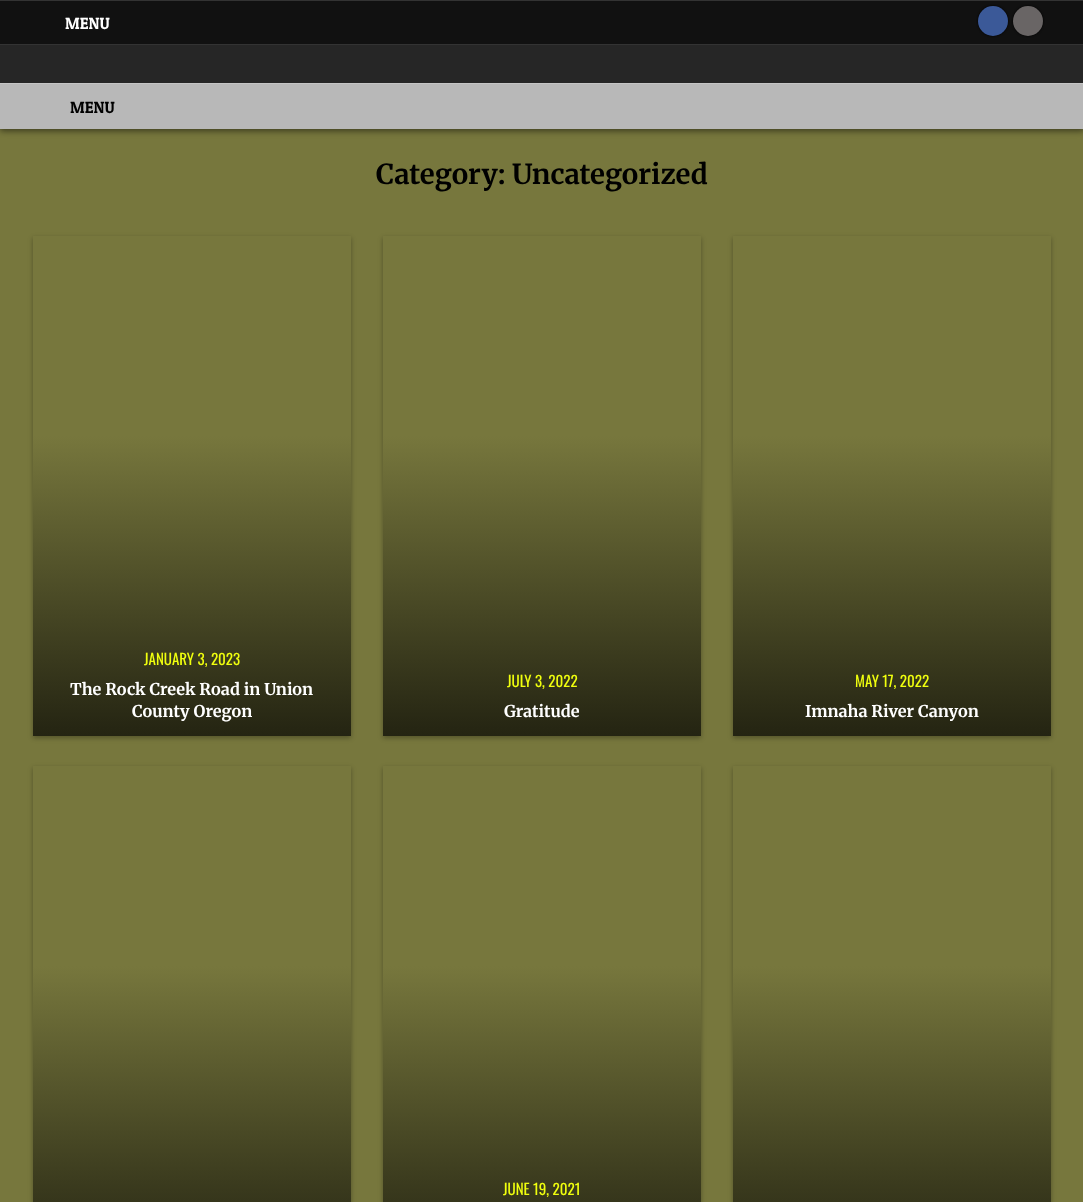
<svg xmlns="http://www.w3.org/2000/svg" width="1083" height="1202">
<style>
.a{font:16.25px Patua One;fill:#fff}
.b{font:16.25px Patua One;fill:#000}
.c{font:bold 27.5px Merriweather;fill:#000}
.d{font:15px Oswald;fill:#f0ff0e}
.e{font:bold 16.25px Merriweather;fill:#fff}
</style>
<defs>
<linearGradient id="g1" gradientUnits="userSpaceOnUse" x1="192" y1="736" x2="192" y2="236"><stop offset="0" stop-color="#242412"/><stop offset="0.6" stop-color="#77773d"/><stop offset="1" stop-color="#77773d"/></linearGradient>
<linearGradient id="g2" gradientUnits="userSpaceOnUse" x1="542" y1="736" x2="542" y2="236"><stop offset="0" stop-color="#242412"/><stop offset="0.6" stop-color="#77773d"/><stop offset="1" stop-color="#77773d"/></linearGradient>
<linearGradient id="g3" gradientUnits="userSpaceOnUse" x1="892" y1="736" x2="892" y2="236"><stop offset="0" stop-color="#242412"/><stop offset="0.6" stop-color="#77773d"/><stop offset="1" stop-color="#77773d"/></linearGradient>
<linearGradient id="g4" gradientUnits="userSpaceOnUse" x1="192" y1="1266" x2="192" y2="766"><stop offset="0" stop-color="#242412"/><stop offset="0.6" stop-color="#77773d"/><stop offset="1" stop-color="#77773d"/></linearGradient>
<linearGradient id="g5" gradientUnits="userSpaceOnUse" x1="542" y1="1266" x2="542" y2="766"><stop offset="0" stop-color="#242412"/><stop offset="0.6" stop-color="#77773d"/><stop offset="1" stop-color="#77773d"/></linearGradient>
<linearGradient id="g6" gradientUnits="userSpaceOnUse" x1="892" y1="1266" x2="892" y2="766"><stop offset="0" stop-color="#242412"/><stop offset="0.6" stop-color="#77773d"/><stop offset="1" stop-color="#77773d"/></linearGradient>
</defs>
<rect width="100%" height="100%" fill="#77773d"/>
<path fill="#111" d="M0 1h1083v43H0z"/>
<path fill="#333" d="M0 0h1083v1H0z"/>
<path fill="#333" d="M0 44h1083v1H0z"/>
<rect fill="#000" filter="blur(1px)" x="978" y="6" width="30" height="30" rx="15"/>
<circle fill="#3b5998" cx="993" cy="21" r="15"/>
<rect fill="#000" filter="blur(1px)" x="1013" y="6" width="30" height="30" rx="15"/>
<circle fill="#696565" cx="1028" cy="21" r="15"/>
<path fill="#00000080" filter="blur(3px)" d="M0 85h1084v46H0z"/>
<path fill="#262626" d="M0 45h1083v38H0z"/>
<path fill="#b8b8b8" d="M0 84h1083v45H0z"/>
<path fill="#c5c5c5" d="M0 83h1083v1H0z"/>
<path fill="#0000004d" filter="blur(2.5px)" d="M33 238h318v500H33z"/>
<path fill="url(#g1)" d="M33 236h318v500H33z"/>
<path fill="#0000004d" filter="blur(2.5px)" d="M383 238h318v500H383z"/>
<path fill="url(#g2)" d="M383 236h318v500H383z"/>
<path fill="#0000004d" filter="blur(2.5px)" d="M733 238h318v500H733z"/>
<path fill="url(#g3)" d="M733 236h318v500H733z"/>
<path fill="#0000004d" filter="blur(2.5px)" d="M33 768h318v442H33z"/>
<path fill="url(#g4)" d="M33 766h318v436H33z"/>
<path fill="#0000004d" filter="blur(2.5px)" d="M383 768h318v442H383z"/>
<path fill="url(#g5)" d="M383 766h318v436H383z"/>
<path fill="#0000004d" filter="blur(2.5px)" d="M733 768h318v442H733z"/>
<path fill="url(#g6)" d="M733 766h318v436H733z"/>
<text class="a" x="65" y="29">MENU</text>
<text class="b" x="70" y="113">MENU</text>
<text class="c" x="376" y="184">Category: Uncategorized</text>
<text class="d" x="144" y="665">JANUARY 3, 2023</text>
<text class="e" x="70" y="695">The Rock Creek Road in Union</text>
<text class="e" x="132" y="717">County Oregon</text>
<text class="d" x="507" y="687">JULY 3, 2022</text>
<text class="e" x="504" y="717">Gratitude</text>
<text class="d" x="855" y="687">MAY 17, 2022</text>
<text class="e" x="805" y="717">Imnaha River Canyon</text>
<text class="d" x="503" y="1195">JUNE 19, 2021</text>
</svg>
